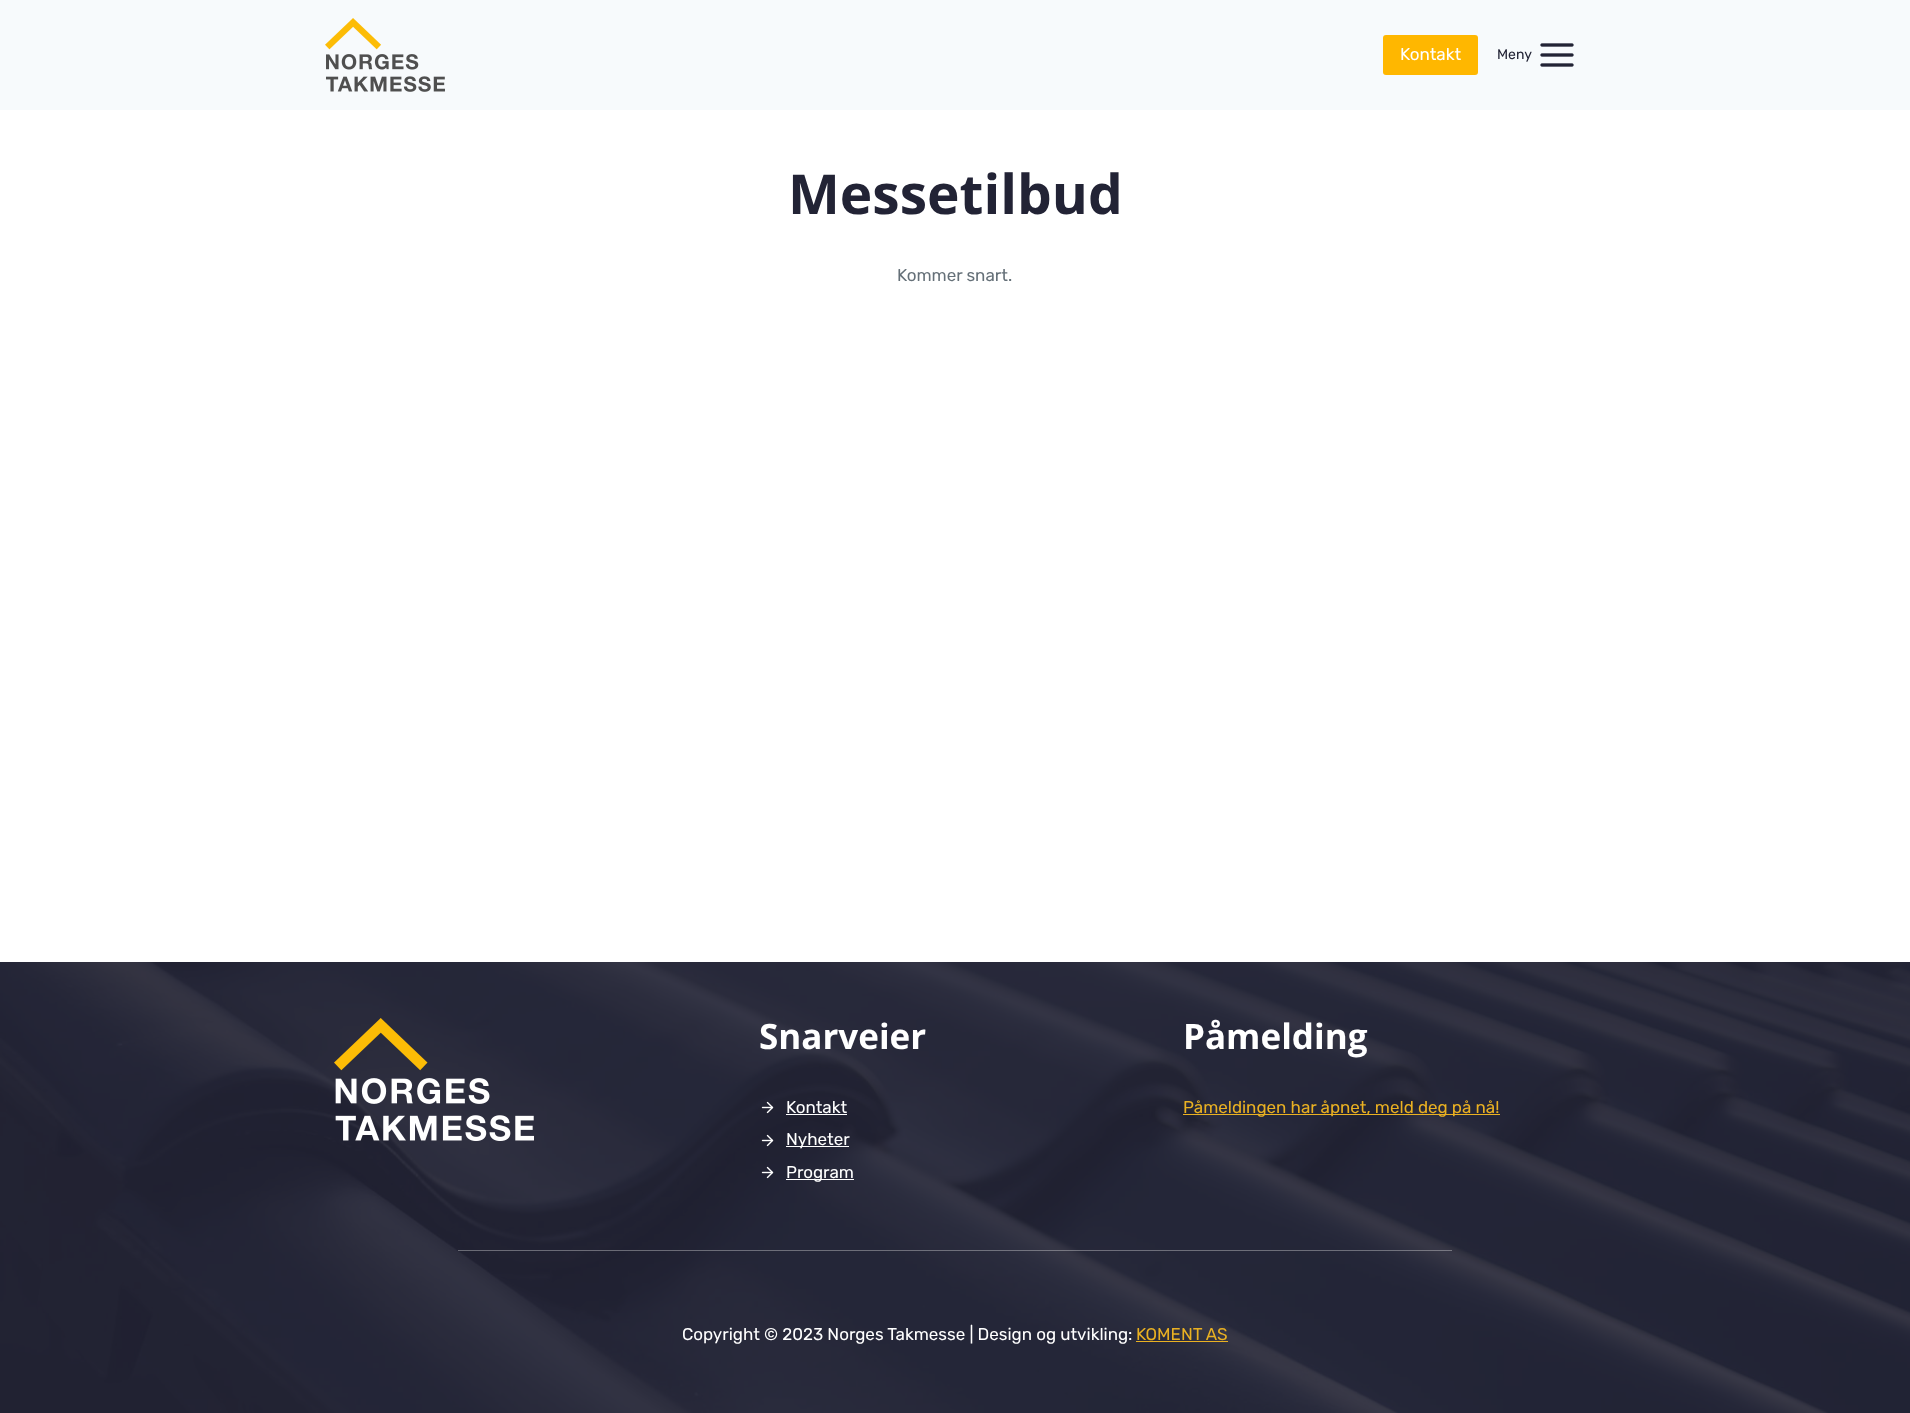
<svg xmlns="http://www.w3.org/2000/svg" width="1910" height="1413">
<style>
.a{font:17px Rubik;fill:#fff}
.b{font:14px Rubik;fill:#222335}
.c{font:bold 55px Open Sans;fill:#222335}
.d{font:17px Rubik;fill:#657078}
.e{font:bold 35px Open Sans;fill:#fff}
.f{font:17px Rubik;fill:#eab122}
</style>
<rect width="100%" height="100%" fill="#fff"/>
<path fill="#f7fafc" d="M0 0h1910v110H0z"/>
<image href="1.png" x="325" y="18" width="120" height="74"/>
<rect fill="#ffb700" x="1383" y="35" width="95" height="40" rx="3"/>
<image href="2.png" x="1540" y="43" width="34" height="24"/>
<image href="3.png" x="0" y="962" width="1910" height="451"/>
<image href="4.png" x="334" y="1018" width="200" height="123"/>
<image href="5.png" x="761" y="1101" width="13" height="13"/>
<path fill="#fff" d="M786 1114h61v1H786z"/>
<image href="6.png" x="761" y="1134" width="13" height="13"/>
<path fill="#fff" d="M786 1146h63v1H786z"/>
<image href="7.png" x="761" y="1166" width="13" height="13"/>
<path fill="#fff" d="M786 1179h68v1H786z"/>
<path fill="#eab122" d="M1183 1114h317v1H1183z"/>
<path fill="#eeeeee5c" d="M458 1250h994v1H458z"/>
<path fill="#eab122" d="M1136 1341h92v1H1136z"/>
<text class="a" x="1400" y="60">Kontakt</text>
<text class="b" x="1497" y="59">Meny</text>
<text class="c" x="788" y="214">Messetilbud</text>
<text class="d" x="897" y="281">Kommer snart.</text>
<text class="e" x="759" y="1049">Snarveier</text>
<text class="a" x="786" y="1113">Kontakt</text>
<text class="a" x="786" y="1145">Nyheter</text>
<text class="a" x="786" y="1178">Program</text>
<text class="e" x="1183" y="1049">Påmelding</text>
<text class="f" x="1183" y="1113">Påmeldingen har åpnet, meld deg på nå!</text>
<text class="a" x="682" y="1340">Copyright © 2023 Norges Takmesse | Design og utvikling:</text>
<text class="f" x="1136" y="1340">KOMENT AS</text>
</svg>
